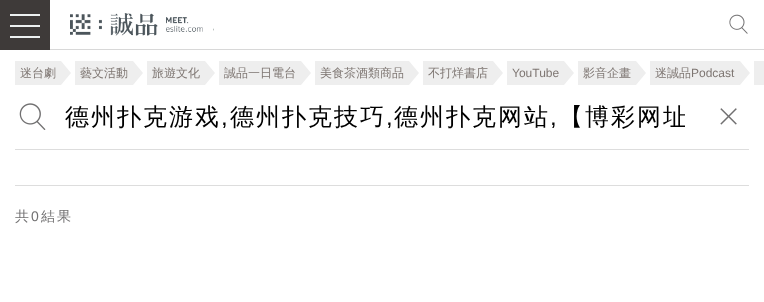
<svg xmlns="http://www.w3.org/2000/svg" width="764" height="302">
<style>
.a{font:500 12px WenQuanYi Zen Hei;fill:#7e7672}
.b{font:12px Liberation Sans;fill:#7e7672}
.c{font:500 24px WenQuanYi Zen Hei;letter-spacing:2px;fill:#000}
.d{font:24px Liberation Sans;letter-spacing:2px;fill:#000}
.e{font:500 14px WenQuanYi Zen Hei;letter-spacing:2px;fill:#717071}
.f{font:14px Liberation Sans;letter-spacing:2px;fill:#717071}
</style>
<defs>
<clipPath id="clip1"><path d="M65 101h620v32H65z"/></clipPath>
</defs>
<rect width="100%" height="100%" fill="#fff"/>
<path fill="#d8d8d8" d="M50 49h714v1H50z"/>
<path fill="#3e3a39" d="M0 0h50v50H0z"/>
<path fill="#ecf0f1" d="M10 14h30v2H10z"/>
<path fill="#ecf0f1" d="M10 25h30v2H10z"/>
<path fill="#ecf0f1" d="M10 36h30v2H10z"/>
<image href="1.png" x="70" y="13" width="133" height="23"/>
<image href="2.png" x="213" y="28" width="1" height="3"/>
<image href="3.png" x="729" y="14" width="19" height="20"/>
<path fill="#eee" d="M15 61h46v24H15z"/>
<path fill="#eee" d="M61 85v-24l10 12z"/>
<path fill="#eee" d="M75 61h58v24H75z"/>
<path fill="#eee" d="M133 85v-24l10 12z"/>
<path fill="#eee" d="M147 61h58v24H147z"/>
<path fill="#eee" d="M205 85v-24l10 12z"/>
<path fill="#eee" d="M219 61h82v24H219z"/>
<path fill="#eee" d="M301 85v-24l10 12z"/>
<path fill="#eee" d="M315 61h94v24H315z"/>
<path fill="#eee" d="M409 85v-24l10 12z"/>
<path fill="#eee" d="M423 61h70v24H423z"/>
<path fill="#eee" d="M493 85v-24l10 12z"/>
<path fill="#eee" d="M507 61h57v24H507z"/>
<path fill="#eee" d="M564 85v-24l10 12z"/>
<path fill="#eee" d="M578 61h58v24H578z"/>
<path fill="#eee" d="M636 85v-24l10 12z"/>
<path fill="#eee" d="M650 61h90v24H650z"/>
<path fill="#eee" d="M740 85v-24l10 12z"/>
<path fill="#eee" d="M754 61h10v24H754z"/>
<path fill="#ddd" d="M15 149h734v1H15z"/>
<image href="4.png" x="19" y="103" width="27" height="27"/>
<image href="5.png" x="720" y="108" width="17" height="17"/>
<path fill="#ddd" d="M15 185h734v1H15z"/>
<text class="a" x="20" y="77">迷台劇</text>
<text class="a" x="80" y="77">藝文活動</text>
<text class="a" x="152" y="77">旅遊文化</text>
<text class="a" x="224" y="77">誠品一日電台</text>
<text class="a" x="320" y="77">美食茶酒類商品</text>
<text class="a" x="428" y="77">不打烊書店</text>
<text class="b" x="512" y="77">YouTube</text>
<text class="a" x="583" y="77">影音企畫</text>
<text class="a" x="655" y="77">迷誠品</text>
<text class="b" x="691" y="77">Podcast</text>
<text class="c" x="65" y="125">德州扑克游戏</text>
<text class="d" x="221" y="125">,</text>
<text class="c" x="230" y="125">德州扑克技巧</text>
<text class="d" x="386" y="125">,</text>
<text class="c" x="394" y="125">德州扑克网站</text>
<text class="d" x="550" y="125">,</text>
<g clip-path="url(#clip1)">
<text class="c" x="559" y="125">【博彩网址</text>
</g>
<text class="e" x="15" y="221">共</text>
<text class="f" x="31" y="221">0</text>
<text class="e" x="41" y="221">結果</text>
</svg>
